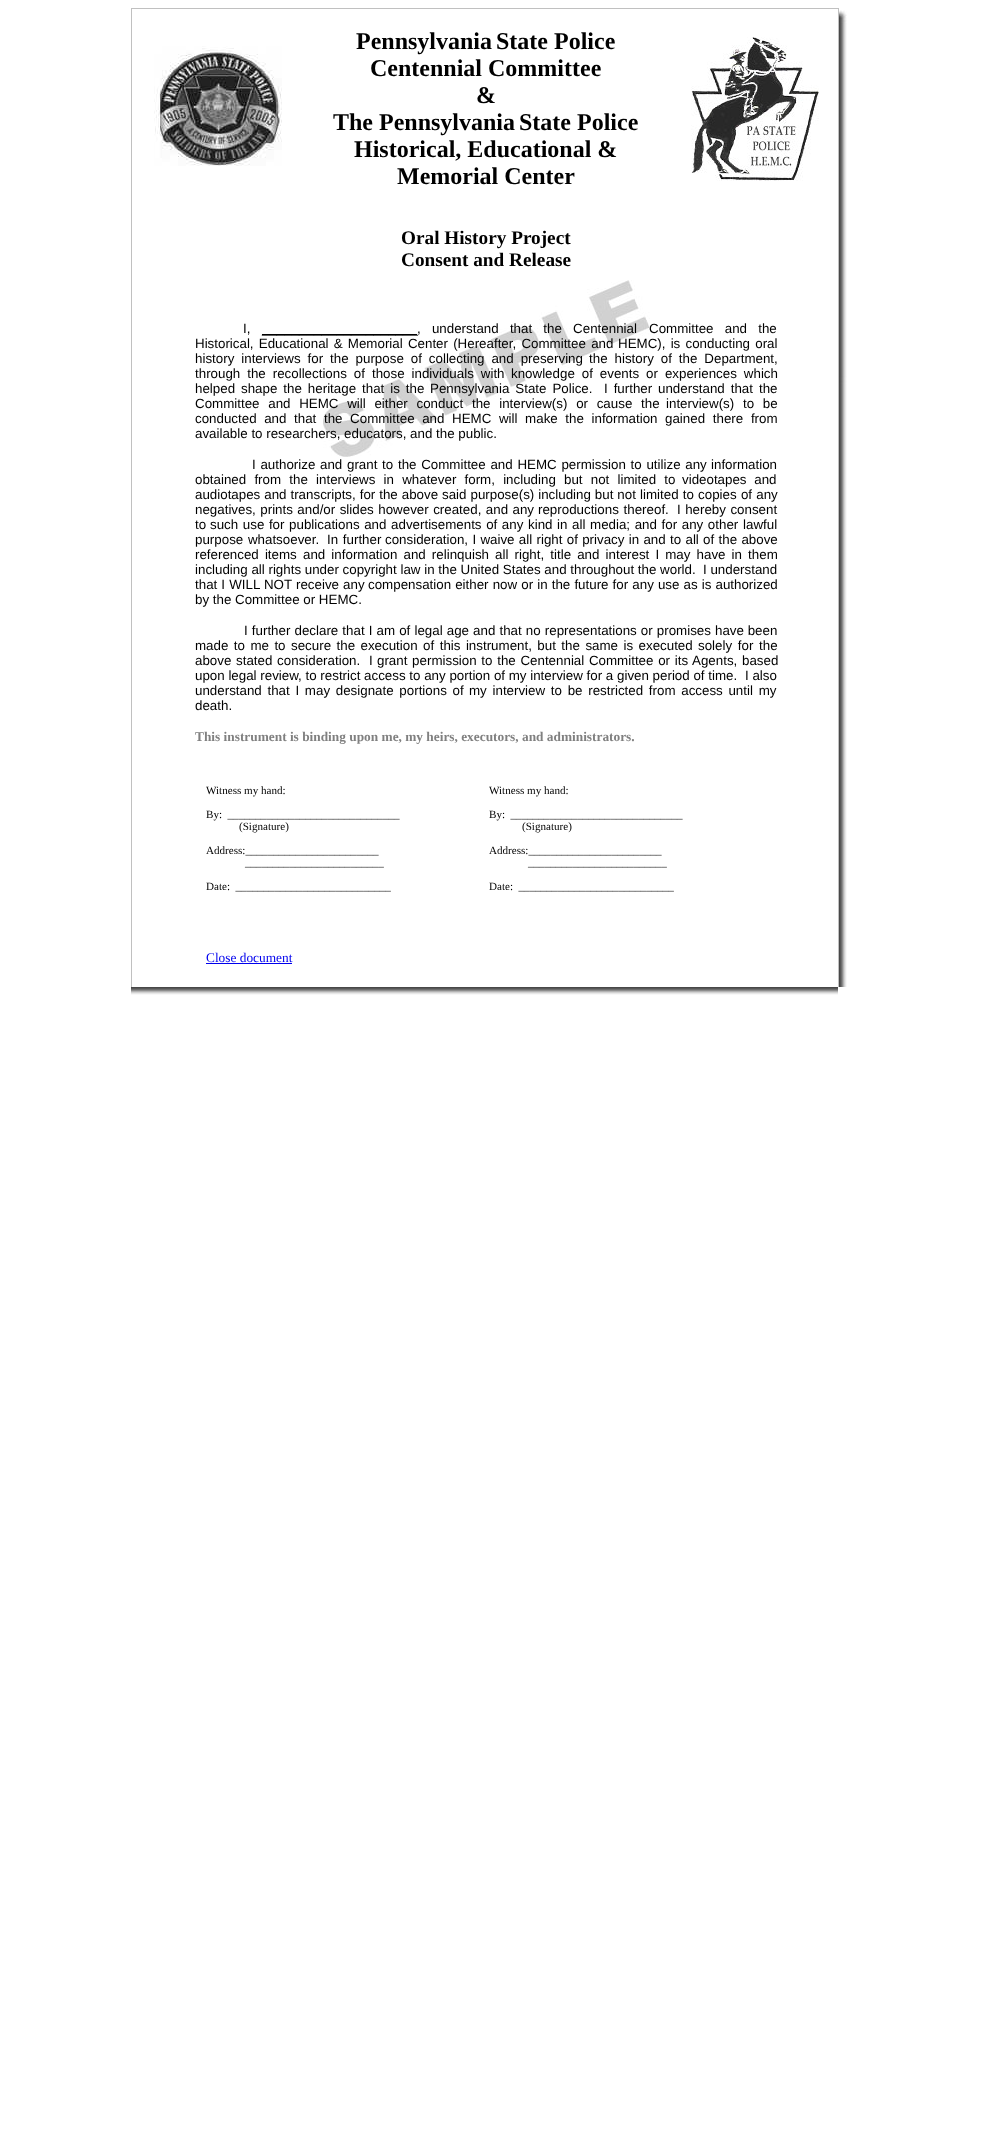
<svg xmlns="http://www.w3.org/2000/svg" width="986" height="2154">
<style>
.a{font:bold 24px Liberation Serif;fill:#000}
.b{font:bold 19.25px Liberation Serif;fill:#000}
.c{font:13.35px Liberation Sans;fill:#000}
.d{font:bold 13.35px Liberation Serif;fill:#808080}
.e{font:11.1px Liberation Serif;fill:#000}
.f{font:13.35px Liberation Serif;fill:#00e}
</style>
<rect width="100%" height="100%" fill="#fff"/>
<path fill="#c0c0c0" d="M131 8h707v1H131z"/>
<path fill="#c0c0c0" d="M131 8h1v979H131z"/>
<image href="1.png" x="839" y="10" width="8" height="977"/>
<path fill="#c0c0c0" d="M838 8h1v979H838z"/>
<image href="2.png" x="154" y="46" width="128" height="120"/>
<image href="3.png" x="691" y="37" width="128" height="144"/>
<image href="4.png" x="323" y="280" width="327" height="177"/>
<path fill="#000" d="M262 334h155v1H262z"/>
<path fill="#00e" d="M206 963h86v1H206z"/>
<image href="5.png" x="131" y="987" width="4" height="8"/>
<image href="6.png" x="135" y="987" width="703" height="8"/>
<text class="a" x="356" y="49">Pennsylvania</text>
<text class="a" x="496" y="49">State Police</text>
<text class="a" x="370" y="76">Centennial Committee</text>
<text class="a" x="476" y="103">&amp;</text>
<text class="a" x="333" y="130">The Pennsylvania</text>
<text class="a" x="519" y="130">State Police</text>
<text class="a" x="354" y="157">Historical, Educational &amp;</text>
<text class="a" x="397" y="184">Memorial Center</text>
<text class="b" x="401" y="244">Oral History Project</text>
<text class="b" x="401" y="266">Consent and Release</text>
<text class="c" x="243" y="333">I,</text>
<text class="c" x="417" y="333" word-spacing="7.5">, understand that the Centennial</text>
<text class="c" x="649" y="333" word-spacing="7.5">Committee and the</text>
<text class="c" x="262" y="333">_____________________</text>
<text class="c" x="195" y="348" word-spacing="1.5">Historical, Educational &amp; Memorial Center (Hereafter, Committee and</text>
<text class="c" x="618" y="348" word-spacing="1.5">HEMC), is conducting oral</text>
<text class="c" x="195" y="363" word-spacing="3.25">history interviews for the purpose of collecting and preserving</text>
<text class="c" x="589" y="363" word-spacing="3.25">the history of the Department,</text>
<text class="c" x="195" y="378" word-spacing="3.25">through the recollections of those individuals with</text>
<text class="c" x="511" y="378" word-spacing="3.25">knowledge of events or experiences which</text>
<text class="c" x="195" y="393" word-spacing="2.25">helped shape the heritage that is the</text>
<text class="c" x="430" y="393" word-spacing="2.25">Pennsylvania State Police.</text>
<text class="c" x="604" y="393" word-spacing="2.25">I further</text>
<text class="c" x="658" y="393" word-spacing="2.25">understand that the</text>
<text class="c" x="195" y="408" word-spacing="5">Committee and HEMC will either conduct the interview(s) or cause the</text>
<text class="c" x="666" y="408" word-spacing="5">interview(s) to be</text>
<text class="c" x="195" y="423" word-spacing="3.9">conducted and that the Committee and HEMC will make the information</text>
<text class="c" x="665" y="423" word-spacing="4">gained there from</text>
<text class="c" x="195" y="438">available to researchers, educators, and the public.</text>
<text class="c" x="252" y="469" word-spacing="1">I authorize and grant to the Committee and HEMC permission to utilize any</text>
<text class="c" x="711" y="469">information</text>
<text class="c" x="195" y="484" word-spacing="4.5">obtained from the interviews in whatever form, including but not limited to</text>
<text class="c" x="682" y="484" word-spacing="4">videotapes and</text>
<text class="c" x="195" y="499" word-spacing="0.25">audiotapes and transcripts, for the above said purpose(s) including but not</text>
<text class="c" x="640" y="499" word-spacing="0.5">limited to copies of any</text>
<text class="c" x="195" y="514" word-spacing="0.75">negatives, prints and/or slides however created, and any</text>
<text class="c" x="538" y="514" word-spacing="1">reproductions thereof.</text>
<text class="c" x="677" y="514" word-spacing="0.75">I hereby consent</text>
<text class="c" x="195" y="529">to</text>
<text class="c" x="210" y="529" word-spacing="0.9">such use for publications and advertisements of any kind in all media; and for any other</text>
<text class="c" x="743" y="529">lawful</text>
<text class="c" x="195" y="544" word-spacing="1">purpose whatsoever.</text>
<text class="c" x="327" y="544" word-spacing="1">In further</text>
<text class="c" x="385" y="544" word-spacing="0.6">consideration, I waive all right of privacy in and to all of the above</text>
<text class="c" x="195" y="559" word-spacing="2.4">referenced items</text>
<text class="c" x="303" y="559" word-spacing="2.4">and information and relinquish all right, title and interest I may have in them</text>
<text class="c" x="195" y="574">including all rights under copyright law in the United States and throughout the world.</text>
<text class="c" x="703" y="574">I understand</text>
<text class="c" x="195" y="589" word-spacing="0.4">that I WILL NOT receive any</text>
<text class="c" x="368" y="589" word-spacing="0.4">compensation either now or in the future for any use as is authorized</text>
<text class="c" x="195" y="604">by the Committee or HEMC.</text>
<text class="c" x="244" y="635" word-spacing="0.4">I further declare that I am of legal age and that no representations or promises</text>
<text class="c" x="715" y="635">have been</text>
<text class="c" x="195" y="650" word-spacing="1.75">made to me to secure the execution of this instrument, but the same is executed</text>
<text class="c" x="698" y="650" word-spacing="2">solely for the</text>
<text class="c" x="195" y="665" word-spacing="1">above stated consideration.</text>
<text class="c" x="369" y="665">I</text>
<text class="c" x="377" y="665" word-spacing="1">grant permission to the Centennial Committee or its Agents, based</text>
<text class="c" x="195" y="680">upon legal review, to restrict access to any portion of my interview for a given period of time.</text>
<text class="c" x="745" y="680">I also</text>
<text class="c" x="195" y="695" word-spacing="2">understand that I may designate portions of</text>
<text class="c" x="469" y="695" word-spacing="2">my interview to be restricted from access until my</text>
<text class="c" x="195" y="710">death.</text>
<text class="d" x="195" y="741">This instrument is binding upon me, my heirs, executors, and administrators.</text>
<text class="e" x="206" y="794">Witness my hand:</text>
<text class="e" xml:space="preserve" x="206" y="818">By:  _______________________________</text>
<text class="e" x="239" y="830">(Signature)</text>
<text class="e" x="206" y="854">Address:________________________</text>
<text class="e" x="245" y="866">_________________________</text>
<text class="e" xml:space="preserve" x="206" y="890">Date:  ____________________________</text>
<text class="e" x="489" y="794">Witness my hand:</text>
<text class="e" xml:space="preserve" x="489" y="818">By:  _______________________________</text>
<text class="e" x="522" y="830">(Signature)</text>
<text class="e" x="489" y="854">Address:________________________</text>
<text class="e" x="528" y="866">_________________________</text>
<text class="e" xml:space="preserve" x="489" y="890">Date:  ____________________________</text>
<text class="f" x="206" y="962">Close document</text>
</svg>
